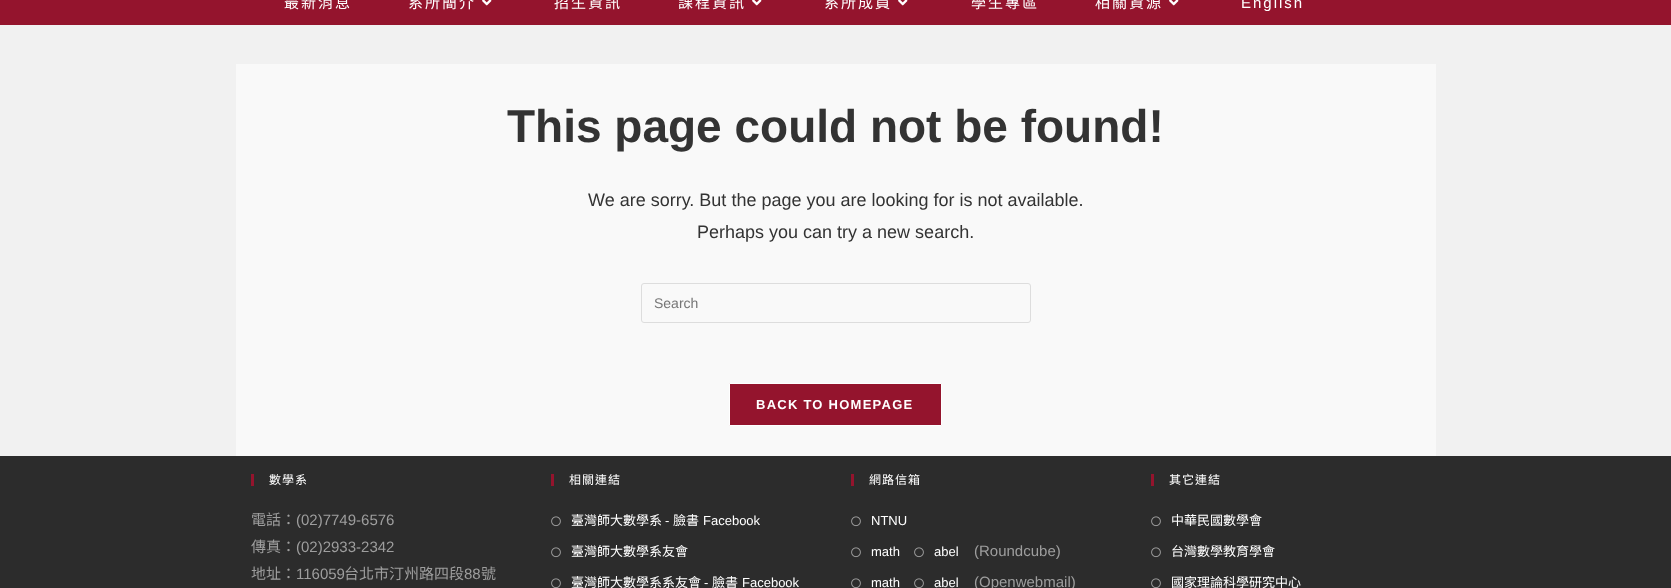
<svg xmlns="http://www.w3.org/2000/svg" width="1671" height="588">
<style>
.a{font:15px Noto Sans CJK TC;letter-spacing:2px;fill:#fff}
.b{font:15px Liberation Sans;letter-spacing:2px;fill:#fff}
.c{font:bold 46px Liberation Sans;fill:#333}
.d{font:18px Liberation Sans;fill:#333}
.e{font:14px Liberation Sans;fill:#757575}
.f{font:bold 13px Liberation Sans;letter-spacing:1.25px;fill:#fff}
.g{font:12px Noto Sans CJK TC;letter-spacing:1px;fill:#fff}
.h{font:15px Noto Sans CJK TC;fill:#9e9e9e}
.i{font:15px Liberation Sans;fill:#9e9e9e}
.j{font:13px Noto Sans CJK TC;fill:#fff}
.k{font:13px Liberation Sans;fill:#fff}
</style>
<rect width="100%" height="100%" fill="#f1f1f1"/>
<path fill="#94142d" d="M0 0h1671v25H0z"/>
<image href="1.png" x="482" y="0" width="10" height="6"/>
<image href="1.png" x="752" y="0" width="10" height="6"/>
<image href="1.png" x="898" y="0" width="10" height="6"/>
<image href="1.png" x="1169" y="0" width="10" height="6"/>
<path fill="#f9f9f9" d="M236 64h1200v392H236z"/>
<rect fill="none" stroke="#ddd" x="641.5" y="283.5" width="389" height="39" rx="2.5"/>
<path fill="#94142d" stroke="#fff" d="M729.5 383.5h212v42H729.5z"/>
<path fill="#2c2c2c" d="M0 456h1671v132H0z"/>
<path fill="#94142d" d="M251 474h3v12H251z"/>
<path fill="#94142d" d="M551 474h3v12H551z"/>
<image href="2.png" x="551" y="516" width="10" height="11"/>
<image href="2.png" x="551" y="547" width="10" height="11"/>
<image href="3.png" x="551" y="578" width="10" height="10"/>
<path fill="#94142d" d="M851 474h3v12H851z"/>
<image href="2.png" x="851" y="516" width="10" height="11"/>
<image href="2.png" x="851" y="547" width="10" height="11"/>
<image href="2.png" x="914" y="547" width="10" height="11"/>
<image href="3.png" x="851" y="578" width="10" height="10"/>
<image href="3.png" x="914" y="578" width="10" height="10"/>
<path fill="#94142d" d="M1151 474h3v12H1151z"/>
<image href="2.png" x="1151" y="516" width="10" height="11"/>
<image href="2.png" x="1151" y="547" width="10" height="11"/>
<image href="3.png" x="1151" y="578" width="10" height="10"/>
<text class="a" x="284" y="8">最新消息</text>
<text class="a" x="408" y="8">系所簡介</text>
<text class="a" x="554" y="8">招生資訊</text>
<text class="a" x="678" y="8">課程資訊</text>
<text class="a" x="824" y="8">系所成員</text>
<text class="a" x="971" y="8">學生專區</text>
<text class="a" x="1095" y="8">相關資源</text>
<text class="b" x="1241" y="8">English</text>
<text class="c" x="507" y="142">This page could not be found!</text>
<text class="d" x="588" y="206">We are sorry. But the page you are looking for is not available.</text>
<text class="d" x="697" y="238">Perhaps you can try a new search.</text>
<text class="e" x="654" y="308">Search</text>
<text class="f" x="756" y="409">BACK TO HOMEPAGE</text>
<text class="g" x="269" y="484">數學系</text>
<text class="h" x="251" y="525">電話：</text>
<text class="i" x="296" y="525">(02)7749-6576</text>
<text class="h" x="251" y="552">傳真：</text>
<text class="i" x="296" y="552">(02)2933-2342</text>
<text class="h" x="251" y="579">地址：</text>
<text class="i" x="296" y="579">116059</text>
<text class="h" x="344" y="579">台北市汀州路四段</text>
<text class="i" x="464" y="579">88</text>
<text class="h" x="481" y="579">號</text>
<text class="g" x="569" y="484">相關連結</text>
<text class="j" x="571" y="525">臺灣師大數學系</text>
<text class="k" x="665" y="525">-</text>
<text class="j" x="673" y="525">臉書</text>
<text class="k" x="703" y="525">Facebook</text>
<text class="j" x="571" y="556">臺灣師大數學系友會</text>
<text class="j" x="571" y="587">臺灣師大數學系系友會</text>
<text class="k" x="704" y="587">-</text>
<text class="j" x="712" y="587">臉書</text>
<text class="k" x="742" y="587">Facebook</text>
<text class="g" x="869" y="484">網路信箱</text>
<text class="k" x="871" y="525">NTNU</text>
<text class="k" x="871" y="556">math</text>
<text class="k" x="934" y="556">abel</text>
<text class="i" x="974" y="556">(Roundcube)</text>
<text class="k" x="871" y="587">math</text>
<text class="k" x="934" y="587">abel</text>
<text class="i" x="974" y="587">(Openwebmail)</text>
<text class="g" x="1169" y="484">其它連結</text>
<text class="j" x="1171" y="525">中華民國數學會</text>
<text class="j" x="1171" y="556">台灣數學教育學會</text>
<text class="j" x="1171" y="587">國家理論科學研究中心</text>
</svg>
